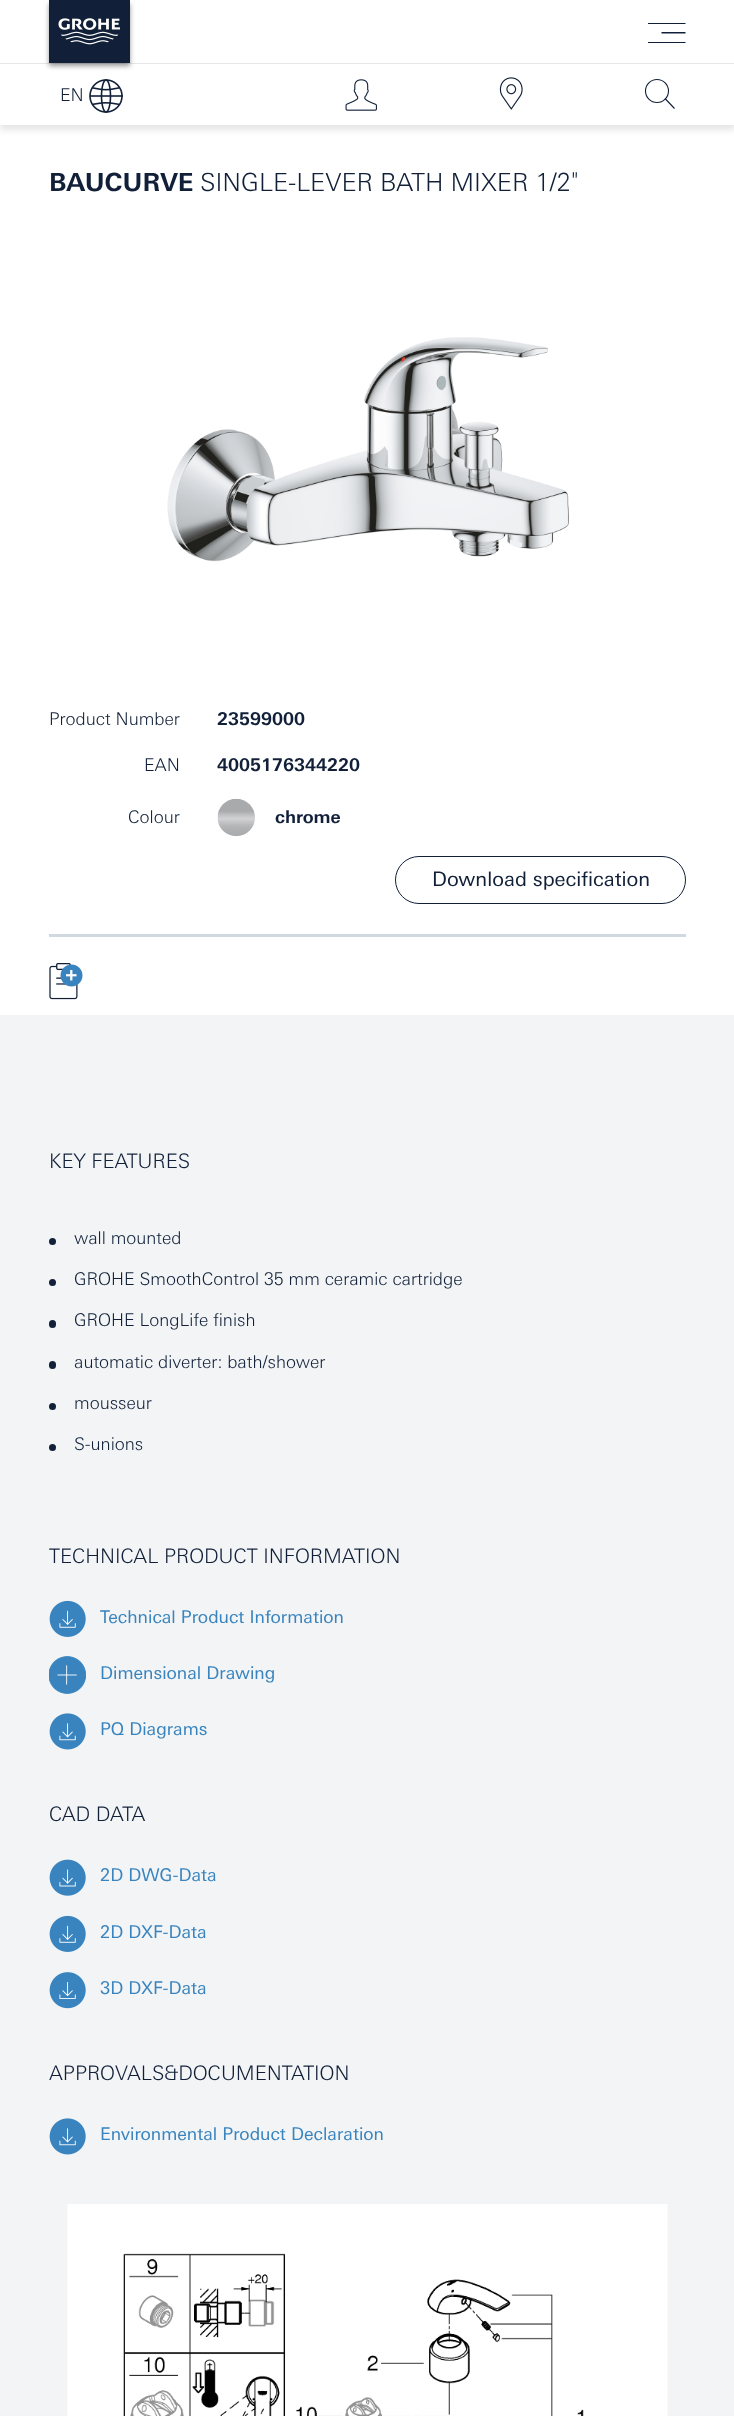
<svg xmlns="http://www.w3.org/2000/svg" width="734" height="2416">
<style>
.a{font:300 17.5px 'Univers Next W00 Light';fill:#112038}
.b{font:bold 25px 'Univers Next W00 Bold';fill:#112038}
.c{font:300 25px 'Univers Next W00 Light';fill:#112038}
.d{font:300 25px Roboto;fill:#112038}
.e{font:bold 17.5px 'Univers Next W00 Bold';fill:#112038}
.f{font:20px 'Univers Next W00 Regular';fill:#112038}
.g{font:300 20px 'Univers Next W00 Light';fill:#112038}
.h{font:17.5px 'Univers Next W00 Regular';fill:#3984be}
</style>
<defs>
<clipPath id="clip1"><path d="M648 23h38v21H648z"/></clipPath>
</defs>
<rect width="100%" height="100%" fill="#fff"/>
<path fill="#0000001a" filter="blur(3px)" d="M0 68h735v62H0z"/>
<path fill="#fff" d="M0 64h734v61H0z"/>
<path fill="#e6e6e6" d="M0 63h734v1H0z"/>
<path fill="#00000066" filter="blur(2.5px)" d="M49 4h81v62H49z"/>
<path fill="#112038" d="M49 0h81v63H49z"/>
<image href="1.png" x="58" y="18" width="62" height="27"/>
<g clip-path="url(#clip1)">
<path fill="#112038" d="M647.5 22.5h38v1.5h-38zm14 9.5h24v1.5h-24zm-14 10h38v1h-38z"/>
</g>
<image href="2.png" x="89" y="79" width="34" height="34"/>
<image href="3.png" x="345" y="79" width="32" height="32"/>
<image href="4.png" x="499" y="77" width="24" height="33"/>
<path fill="none" stroke="#112038" stroke-width="1.1" d="M674.5 108.5l-9.5-10z"/>
<circle fill="none" stroke="#112038" stroke-width="1.1" cx="657" cy="91" r="11.5"/>
<image href="5.png" x="167" y="337" width="402" height="225"/>
<image href="6.png" x="217" y="798" width="38" height="39"/>
<rect fill="none" stroke="#112038" x="395.5" y="856.5" width="290" height="47" rx="23.5"/>
<path fill="#d1d8df" d="M49 934h637v3H49z"/>
<image href="7.png" x="49" y="963" width="34" height="37"/>
<path fill="#f2f4f6" d="M0 1015h734v1401H0z"/>
<circle fill="#112038" cx="52.5" cy="1241.5" r="3.5"/>
<circle fill="#112038" cx="52.5" cy="1282.5" r="3.5"/>
<rect fill="#112038" x="49" y="1320" width="7" height="8" rx="3.5"/>
<rect fill="#112038" x="49" y="1361" width="7" height="8" rx="3.5"/>
<circle fill="#112038" cx="52.5" cy="1406.5" r="3.5"/>
<circle fill="#112038" cx="52.5" cy="1447.5" r="3.5"/>
<image href="8.png" x="49" y="1600" width="37" height="37"/>
<image href="9.png" x="49" y="1656" width="37" height="38"/>
<image href="10.png" x="49" y="1713" width="37" height="37"/>
<image href="11.png" x="49" y="1859" width="37" height="37"/>
<image href="8.png" x="49" y="1915" width="37" height="37"/>
<image href="12.png" x="49" y="1972" width="37" height="37"/>
<image href="10.png" x="49" y="2118" width="37" height="37"/>
<image href="13.png" x="67" y="2204" width="601" height="212"/>
<text class="a" x="60" y="101">EN</text>
<text class="b" x="49" y="191">BAUCURVE</text>
<text class="c" x="200" y="191">SINGLE-LEVER BATH MIXER 1/2</text>
<text class="d" x="571" y="191">″</text>
<text class="a" x="49" y="725">Product Number</text>
<text class="e" x="217" y="725">23599000</text>
<text class="a" x="144" y="771">EAN</text>
<text class="e" x="217" y="771">4005176344220</text>
<text class="a" x="128" y="823">Colour</text>
<text class="e" x="275" y="823">chrome</text>
<text class="f" x="432" y="886">Download specification</text>
<text class="g" x="49" y="1168">KEY FEATURES</text>
<text class="a" x="74" y="1244">wall mounted</text>
<text class="a" x="74" y="1285">GROHE SmoothControl 35 mm ceramic cartridge</text>
<text class="a" x="74" y="1326">GROHE LongLife finish</text>
<text class="a" x="74" y="1368">automatic diverter: bath/shower</text>
<text class="a" x="74" y="1409">mousseur</text>
<text class="a" x="74" y="1450">S-unions</text>
<text class="g" x="49" y="1563">TECHNICAL PRODUCT INFORMATION</text>
<text class="h" x="100" y="1623">Technical Product Information</text>
<text class="h" x="100" y="1679">Dimensional Drawing</text>
<text class="h" x="100" y="1735">PQ Diagrams</text>
<text class="g" x="49" y="1821">CAD DATA</text>
<text class="h" x="100" y="1881">2D DWG-Data</text>
<text class="h" x="100" y="1938">2D DXF-Data</text>
<text class="h" x="100" y="1994">3D DXF-Data</text>
<text class="g" x="49" y="2080">APPROVALS&amp;DOCUMENTATION</text>
<text class="h" x="100" y="2140">Environmental Product Declaration</text>
</svg>
